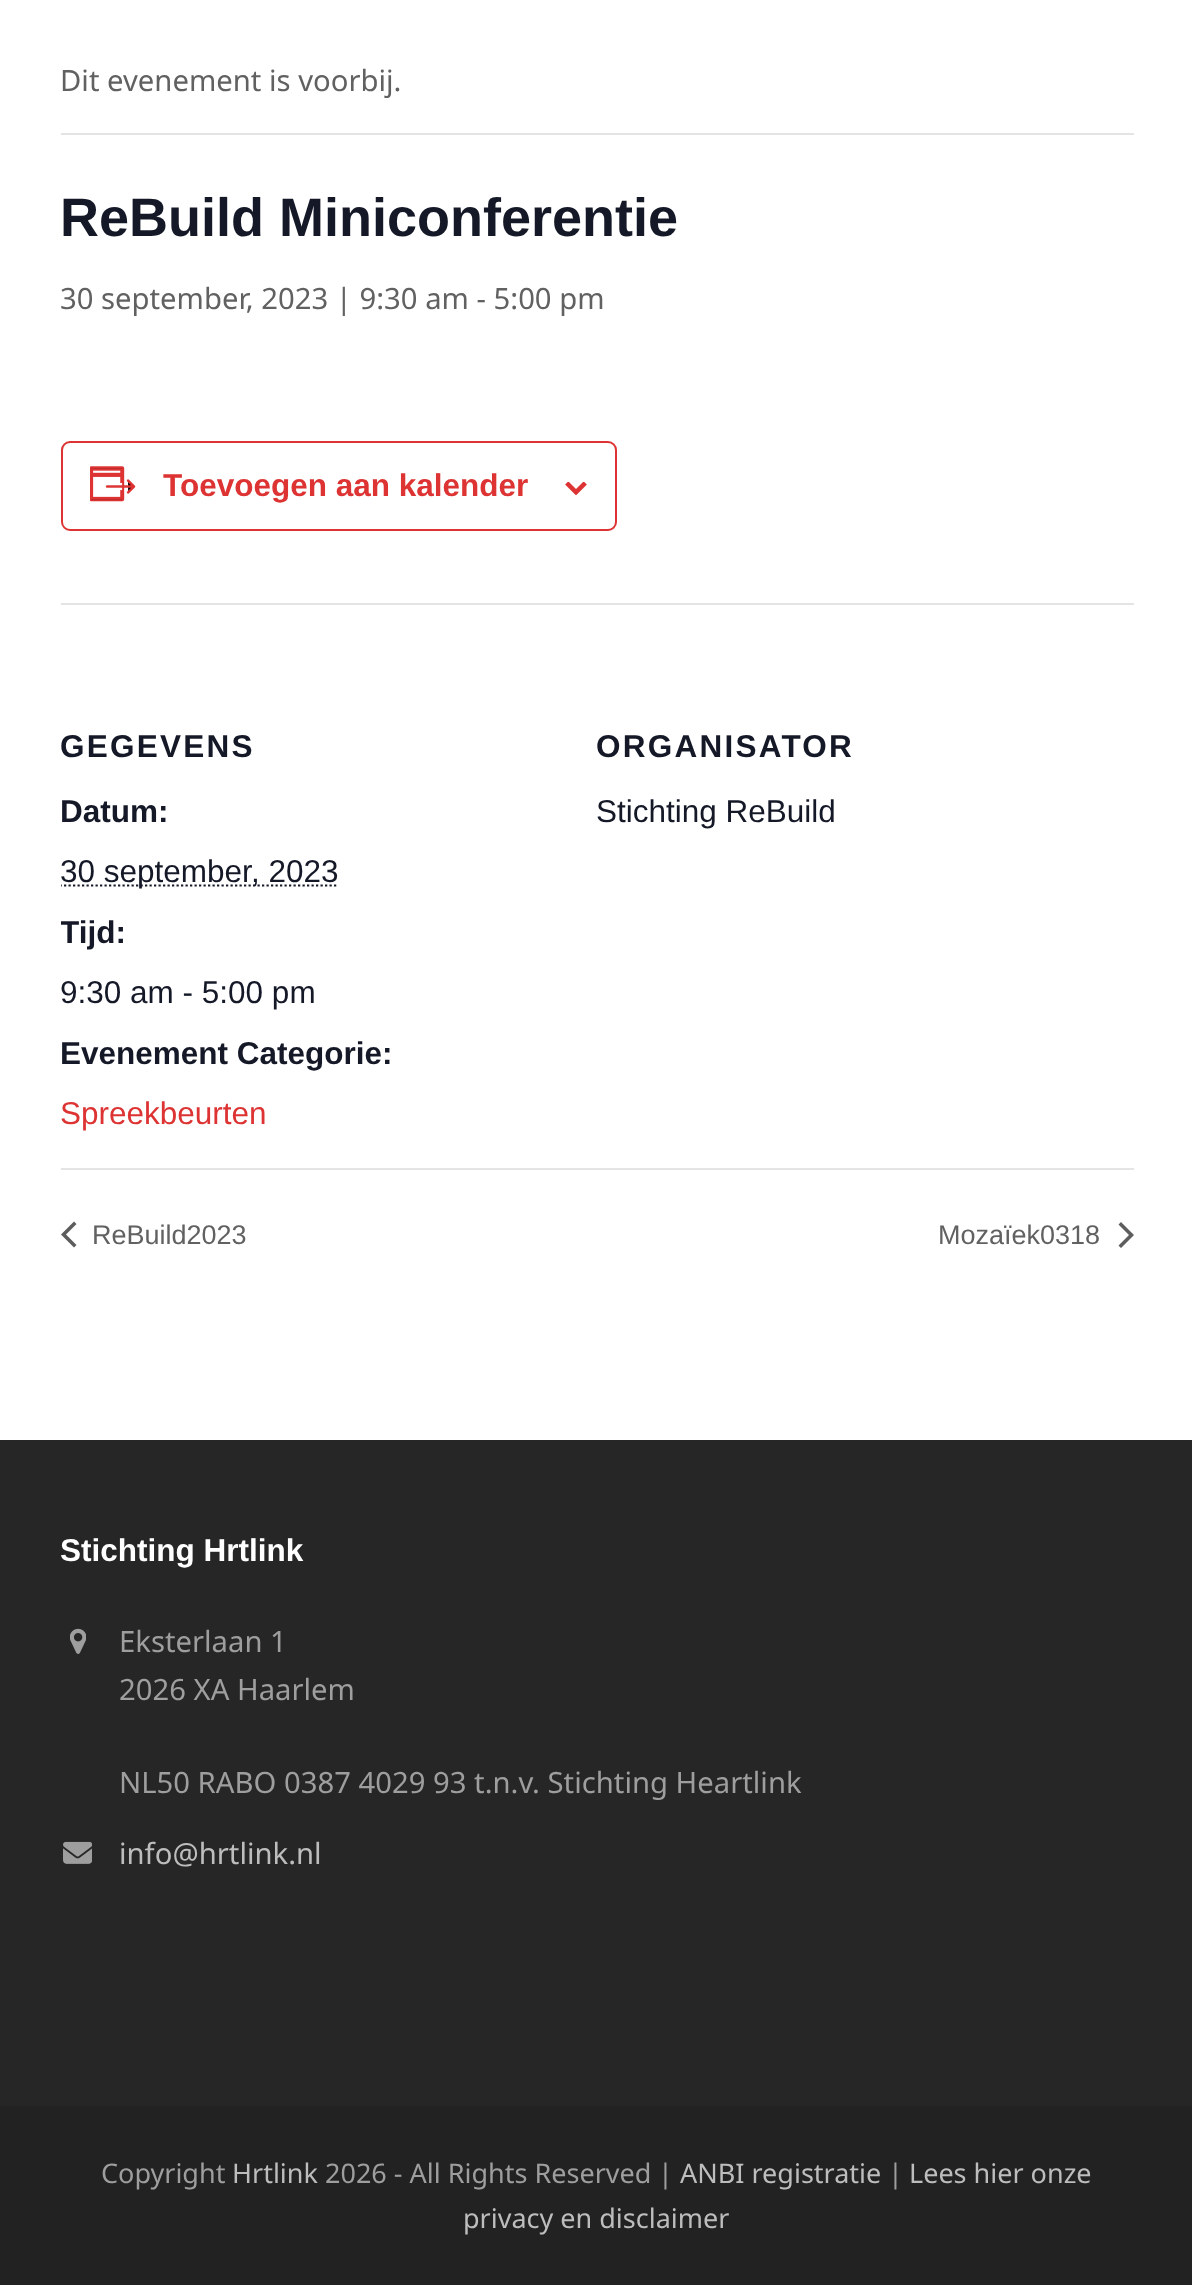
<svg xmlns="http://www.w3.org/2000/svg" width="1192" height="2285">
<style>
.a{font:29.25px Noto Sans;fill:#616161}
.b{font:bold 54px Liberation Sans;fill:#141827}
.c{font:bold 31.5px Liberation Sans;fill:#d33}
.d{font:bold 31.5px Liberation Sans;letter-spacing:2.25px;fill:#141827}
.e{font:bold 31.5px Liberation Sans;fill:#141827}
.f{font:31.5px Liberation Sans;fill:#141827}
.g{font:31.5px Liberation Sans;fill:#d33}
.h{font:27px Liberation Sans;fill:#616161}
.i{font:bold 31.5px Liberation Sans;fill:#fff}
.j{font:29.25px Noto Sans;fill:#9e9e9e}
.k{font:29.25px Noto Sans;fill:#bdbdbd}
.l{font:27px Noto Sans;fill:#9e9e9e}
.m{font:27px Noto Sans;fill:#bdbdbd}
</style>
<defs>
<clipPath id="clip1"><path d="M61 369h1073v799H61z"/></clipPath>
</defs>
<rect width="100%" height="100%" fill="#fff"/>
<path fill="#e4e4e4" d="M61 133h1073v2H61z"/>
<rect fill="none" stroke="#d33" stroke-width="2" x="62" y="442" width="554" height="88" rx="8"/>
<image href="1.png" x="90" y="466" width="46" height="36"/>
<image href="2.png" x="565" y="482" width="22" height="13"/>
<path fill="#e4e4e4" d="M61 603h1073v2H61z"/>
<g clip-path="url(#clip1)">
<path fill="none" stroke="#141827" stroke-width="2.2" stroke-dasharray="2.25 2.25" d="M59.5 885.5h278.5"/>
</g>
<path fill="#e4e4e4" d="M61 1168h1073v2H61z"/>
<path fill="#5d5d5d" d="M76.5 1245l-2.5 2.5l-13-13l13-13l2.5 2.5l-10.5 10.5z"/>
<path fill="#5d5d5d" d="M1118.5 1224.5l2.5-2.5l13 13l-13 13l-2.5-2.5l10.5-10.5z"/>
<path fill="#262626" d="M0 1440h1192v666H0z"/>
<image href="3.png" x="70" y="1628" width="16" height="26"/>
<image href="4.png" x="63" y="1841" width="29" height="23"/>
<path fill="#222" d="M0 2106h1192v179H0z"/>
<text class="a" x="60" y="91">Dit evenement is voorbij.</text>
<text class="b" x="60" y="236">ReBuild Miniconferentie</text>
<text class="a" x="60" y="309">30 september, 2023 | 9:30 am - 5:00 pm</text>
<text class="c" x="163" y="496">Toevoegen aan kalender</text>
<text class="d" x="60" y="757">GEGEVENS</text>
<text class="e" x="60" y="822">Datum:</text>
<text class="f" x="60" y="882">30 september, 2023</text>
<g clip-path="url(#clip1)">
<text class="e" x="60" y="943">Tijd:</text>
</g>
<text class="f" x="60" y="1003">9:30 am - 5:00 pm</text>
<text class="e" x="60" y="1064">Evenement Categorie:</text>
<text class="g" x="60" y="1124">Spreekbeurten</text>
<text class="d" x="596" y="757">ORGANISATOR</text>
<text class="f" x="596" y="822">Stichting ReBuild</text>
<text class="h" x="92" y="1244">ReBuild2023</text>
<text class="h" x="938" y="1244">Mozaïek0318</text>
<text class="i" x="60" y="1561">Stichting Hrtlink</text>
<text class="j" x="119" y="1652">Eksterlaan 1</text>
<text class="j" x="119" y="1700">2026 XA Haarlem</text>
<text class="j" x="119" y="1793">NL50 RABO 0387 4029 93 t.n.v. Stichting Heartlink</text>
<text class="k" x="119" y="1864">info@hrtlink.nl</text>
<text class="l" x="101" y="2183">Copyright</text>
<text class="m" x="232" y="2183">Hrtlink</text>
<text class="l" x="325" y="2183">2026 - All Rights Reserved</text>
<text class="l" x="658" y="2183">|</text>
<text class="m" x="680" y="2183">ANBI registratie</text>
<text class="l" x="888" y="2183">|</text>
<text class="m" x="909" y="2183">Lees hier onze</text>
<text class="m" x="463" y="2228">privacy en disclaimer</text>
</svg>
